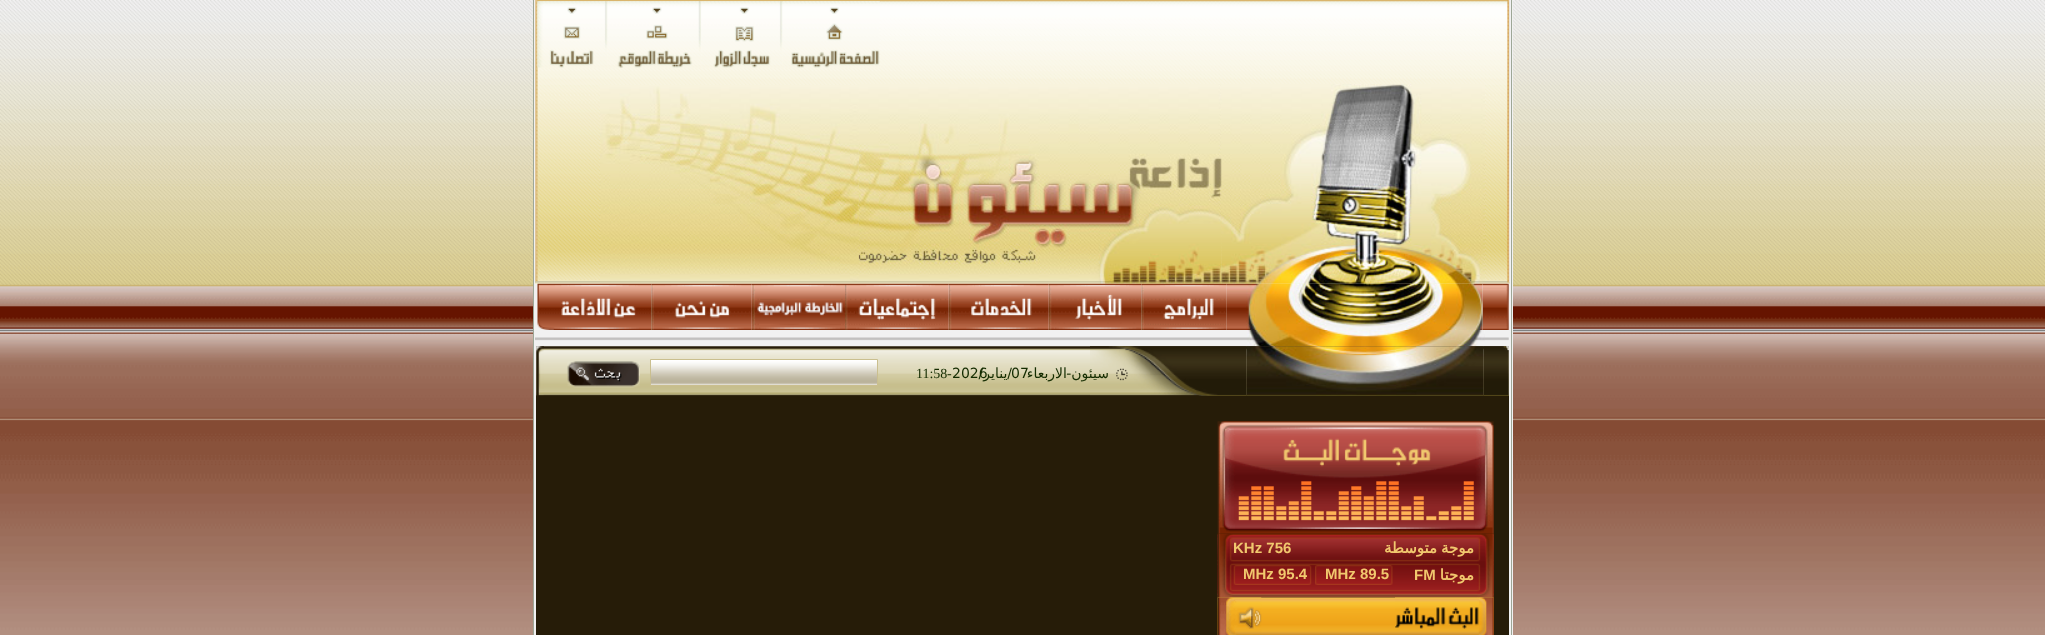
<svg xmlns="http://www.w3.org/2000/svg" width="2045" height="635">
<style>
.a{font:14px Liberation Serif;fill:#142c00}
.b{font:14px DejaVu Sans;fill:#142c00}
.c{font:14px DejaVu Sans;direction:rtl;fill:#142c00}
.d{font:bold 15px Liberation Sans;fill:#f1c86e}
.e{font:bold 15px DejaVu Sans;direction:rtl;fill:#f1c86e}
</style>
<rect width="100%" height="100%" fill="#fff"/>
<image href="1.png" x="0" y="0" width="2045" height="635"/>
<path fill="#f1f1f1" d="M534 0h979v635H534z"/>
<path fill="#9ea797" d="M1511 0h1v635H1511z"/>
<path fill="#9ea797" d="M533 0h1v635H533z"/>
<image href="2.png" x="535" y="0" width="975" height="284"/>
<image href="3.png" x="535" y="0" width="3" height="282"/>
<image href="4.png" x="537" y="1" width="71" height="67"/>
<image href="5.png" x="607" y="1" width="95" height="67"/>
<image href="6.png" x="701" y="1" width="82" height="67"/>
<image href="7.png" x="782" y="1" width="98" height="67"/>
<image href="8.png" x="1507" y="0" width="3" height="283"/>
<image href="11.png" x="1221" y="84" width="264" height="200"/>
<image href="10.png" x="858" y="84" width="364" height="200"/>
<image href="9.png" x="600" y="85" width="259" height="199"/>
<image href="14.png" x="751" y="283" width="94" height="47"/>
<image href="13.png" x="651" y="283" width="101" height="47"/>
<image href="12.png" x="537" y="283" width="115" height="47"/>
<image href="20.png" x="1482" y="283" width="27" height="47"/>
<image href="19.png" x="1226" y="283" width="257" height="47"/>
<image href="18.png" x="1141" y="283" width="86" height="47"/>
<image href="17.png" x="1048" y="283" width="94" height="47"/>
<image href="16.png" x="948" y="283" width="101" height="47"/>
<image href="15.png" x="845" y="283" width="104" height="47"/>
<image href="21.png" x="535" y="337" width="974" height="4"/>
<image href="22.png" x="1247" y="330" width="238" height="17"/>
<image href="23.png" x="536" y="346" width="973" height="50"/>
<image href="24.png" x="536" y="346" width="8" height="50"/>
<image href="25.png" x="567" y="361" width="73" height="27"/>
<image href="26.png" x="651" y="360" width="226" height="25"/>
<path fill="none" stroke="#cabf8f" d="M650.5 359.5h227v26H650.5z"/>
<image href="29.png" x="1483" y="346" width="26" height="50"/>
<image href="28.png" x="1246" y="346" width="238" height="50"/>
<image href="27.png" x="1090" y="346" width="157" height="50"/>
<path fill="#261c08" d="M536 396h973v239H536z"/>
<image href="30.png" x="1217" y="421" width="277" height="113"/>
<image href="31.png" x="1217" y="533" width="277" height="65"/>
<image href="32.png" x="1217" y="533" width="16" height="65"/>
<image href="33.png" x="1477" y="533" width="17" height="65"/>
<image href="34.png" x="1233" y="565" width="79" height="20"/>
<image href="35.png" x="1315" y="565" width="78" height="20"/>
<image href="36.png" x="1217" y="597" width="277" height="38"/>
<image href="37.png" x="1217" y="597" width="45" height="38"/>
<image href="39.png" x="1478" y="597" width="16" height="38"/>
<image href="38.png" x="1395" y="597" width="84" height="32"/>
<text class="a" x="916" y="378">11:58</text>
<text class="a" x="947" y="378">-</text>
<text class="b" x="952" y="378">2026</text>
<text class="c" x="1012" y="378">/يناير/</text>
<text class="b" x="1011" y="378">07</text>
<text class="c" x="1067" y="378">الاربعاء</text>
<text class="c" x="1109" y="378">سيئون-</text>
<text class="d" x="1233" y="553">KHz 756</text>
<text class="e" x="1474" y="553" word-spacing="-1">موجة متوسطة</text>
<text class="d" x="1243" y="579">MHz 95.4</text>
<text class="d" x="1325" y="579">MHz 89.5</text>
<text class="d" x="1414" y="580">FM</text>
<text class="e" x="1474" y="580">موجتا</text>
</svg>
